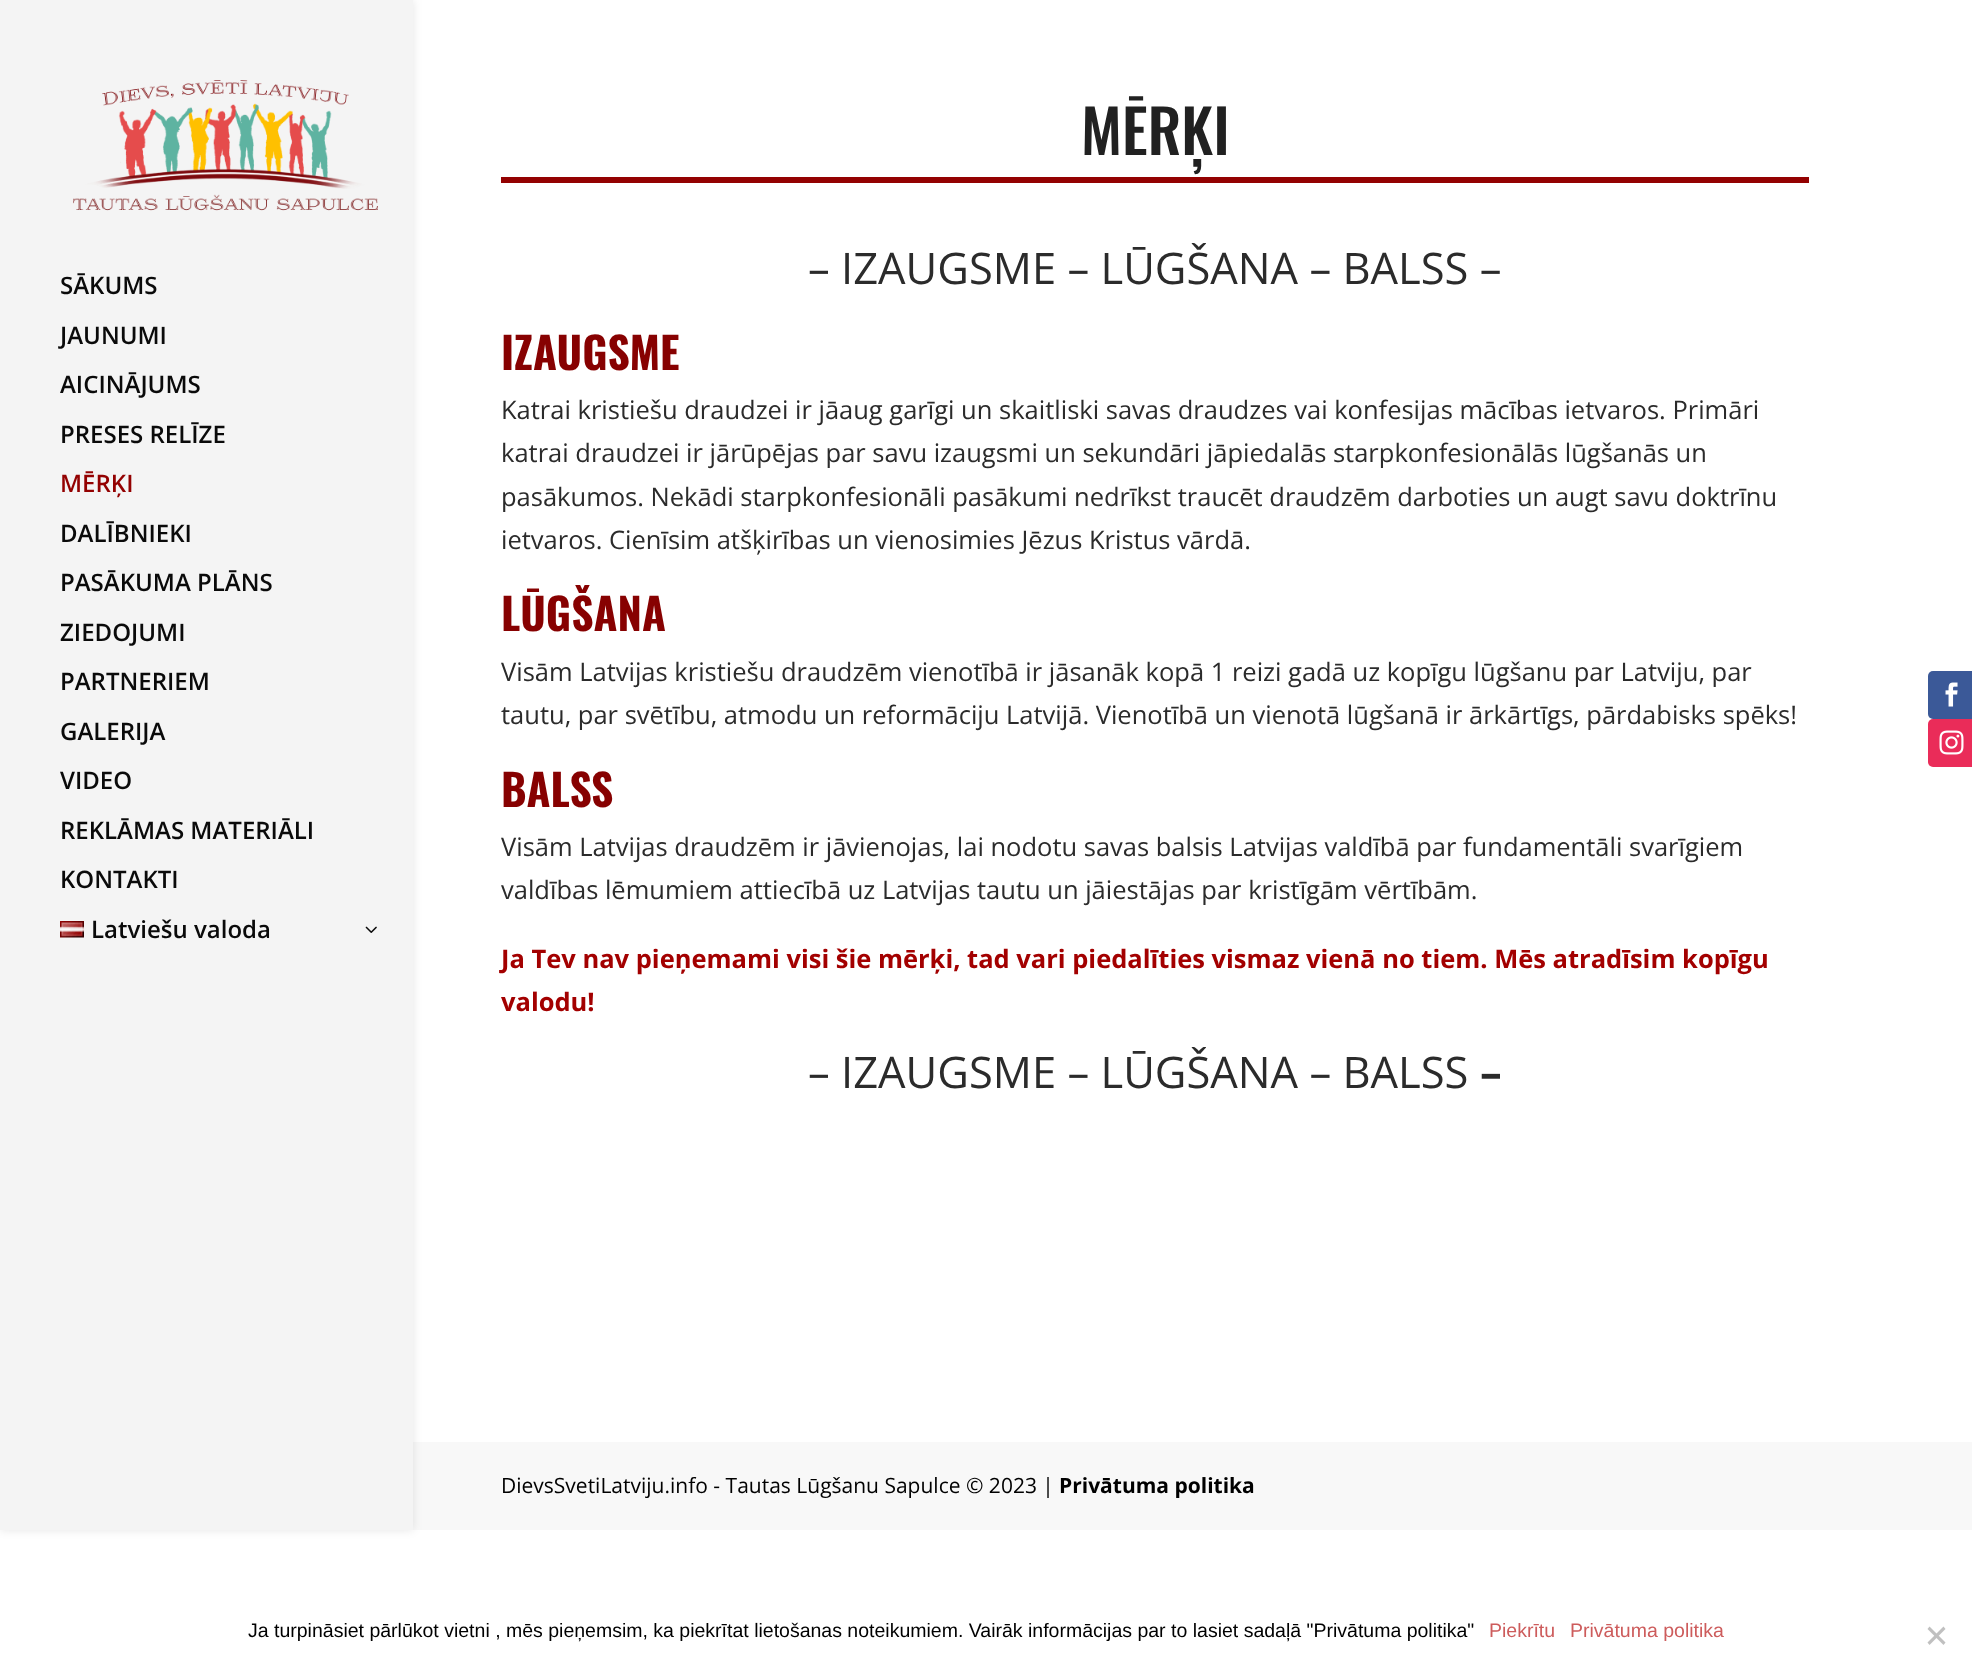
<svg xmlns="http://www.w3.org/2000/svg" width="1972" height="1676">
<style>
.a{font:600 24px Open Sans;fill:#0a0a0a}
.b{font:600 24px Open Sans;fill:#930101}
.c{font:500 60px Oswald;fill:#212121}
.d{font:43.5px Open Sans;fill:#2b2b2b}
.e{font:bold 43.5px Oswald;fill:#870101}
.f{font:25.5px Open Sans;fill:#2b2b2b}
.g{font:bold 25.5px Open Sans;fill:#a30000}
.h{font:bold 43.5px Open Sans;fill:#2b2b2b}
.i{font:21px Open Sans;fill:#000}
.j{font:bold 21px Open Sans;fill:#000}
.k{font:19.5px Liberation Sans;fill:#000}
.l{font:19.5px Liberation Sans;fill:#cd5c5c}
</style>
<rect width="100%" height="100%" fill="#fff"/>
<path fill="#f8f8f8" d="M413 1442h1559v88H413z"/>
<path fill="#0000001a" filter="blur(5px)" d="M0 0h413v1530H0z"/>
<path fill="#f4f4f4" d="M0 0h413v1530H0z"/>
<image href="1.png" x="73" y="80" width="305" height="131"/>
<image href="2.png" x="60" y="921" width="24" height="17"/>
<image href="3.png" x="365" y="926" width="12" height="7"/>
<path fill="#930101" d="M501 177h1308v6H501z"/>
<rect fill="#3b5998" x="1928" y="671" width="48" height="48" rx="5"/>
<image href="4.png" x="1945" y="682" width="13" height="25"/>
<rect fill="#ea2c59" x="1928" y="719" width="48" height="48" rx="5"/>
<image href="5.png" x="1939" y="730" width="25" height="25"/>
<path fill="#c0c0c0" d="M1943.5 1626.5l2 2.5l-16 16l-2-2.5z"/>
<path fill="#c0c0c0" d="M1927.5 1629l2-2.5l16 16l-2 2.5z"/>
<text class="a" x="60" y="294">SĀKUMS</text>
<text class="a" x="60" y="344">JAUNUMI</text>
<text class="a" x="60" y="393">AICINĀJUMS</text>
<text class="a" x="60" y="443">PRESES RELĪZE</text>
<text class="b" x="60" y="492">MĒRĶI</text>
<text class="a" x="60" y="542">DALĪBNIEKI</text>
<text class="a" x="60" y="591">PASĀKUMA PLĀNS</text>
<text class="a" x="60" y="641">ZIEDOJUMI</text>
<text class="a" x="60" y="690">PARTNERIEM</text>
<text class="a" x="60" y="740">GALERIJA</text>
<text class="a" x="60" y="789">VIDEO</text>
<text class="a" x="60" y="839">REKLĀMAS MATERIĀLI</text>
<text class="a" x="60" y="888">KONTAKTI</text>
<text class="a" x="91" y="938">Latviešu valoda</text>
<text class="c" x="1081" y="155">MĒRĶI</text>
<text class="d" x="808" y="284">– IZAUGSME – LŪGŠANA – BALSS –</text>
<text class="e" x="501" y="370">IZAUGSME</text>
<text class="f" x="501" y="419">Katrai kristiešu draudzei ir jāaug garīgi un skaitliski savas draudzes vai konfesijas mācības ietvaros. Primāri</text>
<text class="f" x="501" y="462">katrai draudzei ir jārūpējas par savu izaugsmi un sekundāri jāpiedalās starpkonfesionālās lūgšanās un</text>
<text class="f" x="501" y="506">pasākumos. Nekādi starpkonfesionāli pasākumi nedrīkst traucēt draudzēm darboties un augt savu doktrīnu</text>
<text class="f" x="501" y="549">ietvaros. Cienīsim atšķirības un vienosimies Jēzus Kristus vārdā.</text>
<text class="e" x="501" y="631">LŪGŠANA</text>
<text class="f" x="501" y="681">Visām Latvijas kristiešu draudzēm vienotībā ir jāsanāk kopā 1 reizi gadā uz kopīgu lūgšanu par Latviju, par</text>
<text class="f" x="501" y="724">tautu, par svētību, atmodu un reformāciju Latvijā. Vienotībā un vienotā lūgšanā ir ārkārtīgs, pārdabisks spēks!</text>
<text class="e" x="501" y="807">BALSS</text>
<text class="f" x="501" y="856">Visām Latvijas draudzēm ir jāvienojas, lai nodotu savas balsis Latvijas valdībā par fundamentāli svarīgiem</text>
<text class="f" x="501" y="899">valdības lēmumiem attiecībā uz Latvijas tautu un jāiestājas par kristīgām vērtībām.</text>
<text class="g" x="501" y="968">Ja Tev nav pieņemami visi šie mērķi, tad vari piedalīties vismaz vienā no tiem. Mēs atradīsim kopīgu</text>
<text class="g" x="501" y="1011">valodu!</text>
<text class="d" x="808" y="1088">– IZAUGSME – LŪGŠANA – BALSS</text>
<text class="h" x="1480" y="1088">–</text>
<text class="i" x="501" y="1493">DievsSvetiLatviju.info - Tautas Lūgšanu Sapulce © 2023 |</text>
<text class="j" x="1059" y="1493">Privātuma politika</text>
<text class="k" x="248" y="1637">Ja turpināsiet pārlūkot vietni , mēs pieņemsim, ka piekrītat lietošanas noteikumiem. Vairāk informācijas par to lasiet sadaļā "Privātuma politika"</text>
<text class="l" x="1489" y="1637">Piekrītu</text>
<text class="l" x="1570" y="1637">Privātuma politika</text>
</svg>
